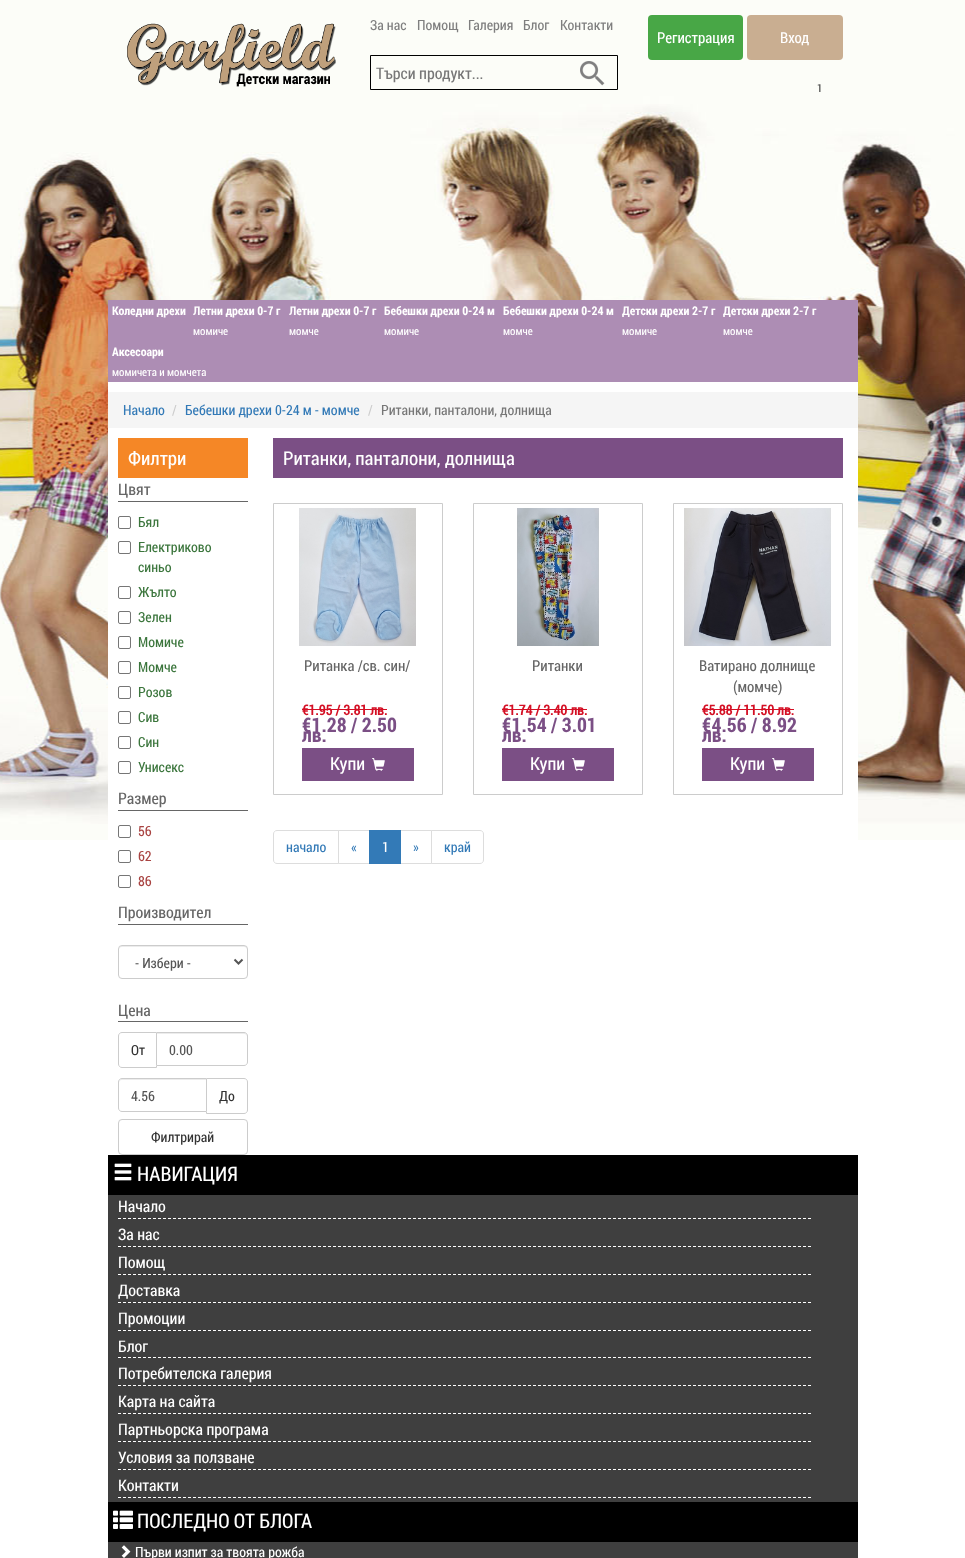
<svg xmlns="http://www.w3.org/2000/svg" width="965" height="1558">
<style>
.a{font:14px Roboto Condensed;fill:#7f7f7f}
.b{font:16px Roboto Condensed;fill:#777}
.c{font:15px Roboto Condensed;fill:#fff}
.d{font:11px Roboto Condensed;fill:#333}
.e{font:bold 12px Roboto Condensed;fill:#fff}
.f{font:11px Roboto Condensed;fill:#fff}
.g{font:14px Roboto Condensed;fill:#337ab7}
.h{font:14px Roboto Condensed;fill:#ccc}
.i{font:14px Roboto Condensed;fill:#777}
.j{font:19px Roboto Condensed;fill:#fff}
.k{font:16px Roboto Condensed;fill:#666}
.l{font:14px Roboto Condensed;fill:#3c763d}
.m{font:14px Roboto Condensed;fill:#a94442}
.n{font:14px Roboto Condensed;fill:#555}
.o{font:14px Roboto Condensed;fill:#333}
.p{font:15px Roboto Condensed;fill:#666}
.q{font:bold 14px 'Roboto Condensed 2';fill:#d40f24}
.r{font:bold 20px Roboto Condensed;fill:#7b4f85}
.s{font:18px Roboto Condensed;fill:#fff}
.t{font:14px Roboto Condensed;fill:#fff}
.u{font:20px Roboto Condensed;fill:#fff}
.v{font:16px Roboto Condensed;fill:#fff}
</style>
<rect width="100%" height="100%" fill="#fff"/>
<image href="1.png" x="0" y="0" width="965" height="840"/>
<image href="2.png" x="127" y="23" width="209" height="64"/>
<image href="3.png" x="580" y="61" width="25" height="25"/>
<path fill="none" stroke="#000" d="M370.5 55.5h247v34H370.5z"/>
<rect fill="#48a746" x="648" y="15" width="95" height="45" rx="4"/>
<rect fill="#c9ae91" x="747" y="15" width="96" height="45" rx="4"/>
<path fill="#fff" d="M108 382h750v458H108z"/>
<path fill="#ad8db4" d="M108 300h750v82H108z"/>
<path fill="#f5f5f5" d="M108 392h750v36H108z"/>
<path fill="#f58726" d="M118 438h130v40H118z"/>
<path fill="#666" d="M118 501h130v1H118z"/>
<rect fill="none" stroke="#767676" x="118.5" y="516.5" width="12" height="12" rx="1.5"/>
<rect fill="none" stroke="#767676" x="118.5" y="541.5" width="12" height="12" rx="1.5"/>
<rect fill="none" stroke="#767676" x="118.5" y="586.5" width="12" height="12" rx="1.5"/>
<rect fill="none" stroke="#767676" x="118.5" y="611.5" width="12" height="12" rx="1.5"/>
<rect fill="none" stroke="#767676" x="118.5" y="636.5" width="12" height="12" rx="1.5"/>
<rect fill="none" stroke="#767676" x="118.5" y="661.5" width="12" height="12" rx="1.5"/>
<rect fill="none" stroke="#767676" x="118.5" y="686.5" width="12" height="12" rx="1.5"/>
<rect fill="none" stroke="#767676" x="118.5" y="711.5" width="12" height="12" rx="1.5"/>
<rect fill="none" stroke="#767676" x="118.5" y="736.5" width="12" height="12" rx="1.5"/>
<rect fill="none" stroke="#767676" x="118.5" y="761.5" width="12" height="12" rx="1.5"/>
<path fill="#666" d="M118 810h130v1H118z"/>
<rect fill="none" stroke="#767676" x="118.5" y="825.5" width="12" height="12" rx="1.5"/>
<rect fill="none" stroke="#767676" x="118.5" y="850.5" width="12" height="12" rx="1.5"/>
<rect fill="none" stroke="#767676" x="118.5" y="875.5" width="12" height="12" rx="1.5"/>
<path fill="#666" d="M118 924h130v1H118z"/>
<path fill="#ececec" d="M122 947h122c2 0 3 1 3 3c0-2 0-4-2-4h-123c-2 0-3 2-3 4c0-2 1-3 3-3z"/>
<rect fill="none" stroke="#ccc" x="118.5" y="945.5" width="129" height="33" rx="3.5"/>
<path fill="none" stroke="#555" stroke-width="2" d="M234.5 959.5l4 4l4-4"/>
<path fill="#666" d="M118 1021h130v1H118z"/>
<path fill="none" stroke="#ccc" d="M122 1032.5h34.5v35h-34.5c-2 0-3.5-1.5-3.5-3.5v-28c0-2 1.5-3.5 3.5-3.5z"/>
<path fill="#fff" d="M156 1032h88c2 0 4 2 4 4v26c0 2-2 4-4 4h-88z"/>
<path fill="#ececec" d="M157 1034h87c2 0 3 1 3 3v-1c0-2-1-3-3-3h-87z"/>
<path fill="none" stroke="#ccc" d="M156.5 1032.5h87.5c2 0 3.5 1.5 3.5 3.5v26c0 2-1.5 3.5-3.5 3.5h-87.5z"/>
<path fill="none" stroke="#ccc" d="M206.5 1078.5h37.5c2 0 3.5 1.5 3.5 3.5v28c0 2-1.5 3.5-3.5 3.5h-37.5z"/>
<path fill="#fff" d="M122 1078h85v34h-85c-2 0-4-2-4-4v-26c0-2 2-4 4-4z"/>
<path fill="#ececec" d="M122 1080h84v-1h-84c-2 0-3 1-3 3v1c0-2 1-3 3-3z"/>
<path fill="none" stroke="#ccc" d="M122 1078.5h84.5v33h-84.5c-2 0-3.5-1.5-3.5-3.5v-26c0-2 1.5-3.5 3.5-3.5z"/>
<rect fill="none" stroke="#ccc" x="118.5" y="1119.5" width="129" height="35" rx="3.5"/>
<path fill="#7b4f85" d="M273 438h570v40H273z"/>
<path fill="none" stroke="#ccc" d="M273.5 503.5h169v291H273.5z"/>
<image href="4.png" x="299" y="508" width="117" height="138"/>
<path fill="#d40f24" d="M302 709h85v1H302z"/>
<path fill="#7b4f85" d="M302 748h112v33H302z"/>
<image href="5.png" x="372" y="758" width="13" height="13"/>
<path fill="none" stroke="#ccc" d="M473.5 503.5h169v291H473.5z"/>
<image href="6.png" x="517" y="508" width="82" height="138"/>
<path fill="#d40f24" d="M502 709h85v1H502z"/>
<path fill="#7b4f85" d="M502 748h112v33H502z"/>
<image href="5.png" x="572" y="758" width="13" height="13"/>
<path fill="none" stroke="#ccc" d="M673.5 503.5h169v291H673.5z"/>
<image href="7.png" x="684" y="508" width="147" height="138"/>
<path fill="#d40f24" d="M702 709h92v1H702z"/>
<path fill="#7b4f85" d="M702 748h112v33H702z"/>
<image href="5.png" x="772" y="758" width="13" height="13"/>
<path fill="none" stroke="#ddd" d="M277 830.5h61.5v33h-61.5c-2 0-3.5-1.5-3.5-3.5v-26c0-2 1.5-3.5 3.5-3.5z"/>
<path fill="none" stroke="#ddd" d="M338.5 830.5h31v33H338.5z"/>
<path fill="none" stroke="#ddd" d="M400.5 830.5h31v33H400.5z"/>
<path fill="#337ab7" d="M369 830h32v34H369z"/>
<path fill="#fff" stroke="#ddd" d="M431.5 830.5h48.5c2 0 3.5 1.5 3.5 3.5v26c0 2-1.5 3.5-3.5 3.5h-48.5z"/>
<path fill="#3f3f3f" d="M108 1195h750v363H108z"/>
<path fill="#000" d="M108 1155h750v40H108z"/>
<image href="8.png" x="114" y="1163" width="18" height="18"/>
<path fill="none" stroke="#fff" stroke-dasharray="3 2" d="M118 1218.5h693"/>
<path fill="none" stroke="#fff" stroke-dasharray="3 2" d="M118 1246.5h693"/>
<path fill="none" stroke="#fff" stroke-dasharray="3 2" d="M118 1274.5h693"/>
<path fill="none" stroke="#fff" stroke-dasharray="3 2" d="M118 1302.5h693"/>
<path fill="none" stroke="#fff" stroke-dasharray="3 2" d="M118 1330.5h693"/>
<path fill="none" stroke="#fff" stroke-dasharray="3 2" d="M118 1357.5h693"/>
<path fill="none" stroke="#fff" stroke-dasharray="3 2" d="M118 1385.5h693"/>
<path fill="none" stroke="#fff" stroke-dasharray="3 2" d="M118 1413.5h693"/>
<path fill="none" stroke="#fff" stroke-dasharray="3 2" d="M118 1441.5h693"/>
<path fill="none" stroke="#fff" stroke-dasharray="3 2" d="M118 1469.5h693"/>
<path fill="none" stroke="#fff" stroke-dasharray="3 2" d="M118 1497.5h693"/>
<path fill="#000" d="M108 1502h750v40H108z"/>
<image href="9.png" x="113" y="1510" width="20" height="19"/>
<image href="10.png" x="121" y="1545" width="10" height="13"/>
<text class="a" x="370" y="30">За нас</text>
<text class="a" x="417" y="30">Помощ</text>
<text class="a" x="468" y="30">Галерия</text>
<text class="a" x="523" y="30">Блог</text>
<text class="a" x="560" y="30">Контакти</text>
<text class="b" x="376" y="79">Търси продукт...</text>
<text class="c" x="657" y="43">Регистрация</text>
<text class="c" x="780" y="43">Вход</text>
<text class="d" x="817" y="92">1</text>
<text class="e" x="112" y="315">Коледни дрехи</text>
<text class="e" x="193" y="315">Летни дрехи 0-7 г</text>
<text class="f" x="193" y="335">момиче</text>
<text class="e" x="289" y="315">Летни дрехи 0-7 г</text>
<text class="f" x="289" y="335">момче</text>
<text class="e" x="384" y="315">Бебешки дрехи 0-24 м</text>
<text class="f" x="384" y="335">момиче</text>
<text class="e" x="503" y="315">Бебешки дрехи 0-24 м</text>
<text class="f" x="503" y="335">момче</text>
<text class="e" x="622" y="315">Детски дрехи 2-7 г</text>
<text class="f" x="622" y="335">момиче</text>
<text class="e" x="723" y="315">Детски дрехи 2-7 г</text>
<text class="f" x="723" y="335">момче</text>
<text class="e" x="112" y="356">Аксесоари</text>
<text class="f" x="112" y="376">момичета и момчета</text>
<text class="g" x="123" y="415">Начало</text>
<text class="h" x="172" y="415">/</text>
<text class="g" x="185" y="415">Бебешки дрехи 0-24 м - момче</text>
<text class="h" x="368" y="415">/</text>
<text class="i" x="381" y="415">Ританки, панталони, долнища</text>
<text class="j" x="128" y="465">Филтри</text>
<text class="k" x="118" y="495">Цвят</text>
<text class="l" x="138" y="527">Бял</text>
<text class="l" x="138" y="552">Електриково</text>
<text class="l" x="138" y="572">синьо</text>
<text class="l" x="138" y="597">Жълто</text>
<text class="l" x="138" y="622">Зелен</text>
<text class="l" x="138" y="647">Момиче</text>
<text class="l" x="138" y="672">Момче</text>
<text class="l" x="138" y="697">Розов</text>
<text class="l" x="138" y="722">Сив</text>
<text class="l" x="138" y="747">Син</text>
<text class="l" x="138" y="772">Унисекс</text>
<text class="k" x="118" y="804">Размер</text>
<text class="m" x="138" y="836">56</text>
<text class="m" x="138" y="861">62</text>
<text class="m" x="138" y="886">86</text>
<text class="k" x="118" y="918">Производител</text>
<text class="n" x="135" y="968">- Избери -</text>
<text class="k" x="118" y="1016">Цена</text>
<text class="o" x="131" y="1055">От</text>
<text class="n" x="169" y="1055">0.00</text>
<text class="n" x="131" y="1101">4.56</text>
<text class="o" x="219" y="1101">До</text>
<text class="o" x="151" y="1142">Филтрирай</text>
<text class="j" x="283" y="465">Ританки, панталони, долнища</text>
<text class="p" x="304" y="671">Ританка /св. син/</text>
<text class="q" x="302" y="715">€1.95 / 3.81 лв.</text>
<text class="r" x="302" y="732">€1.28 / 2.50</text>
<text class="r" x="302" y="742">лв.</text>
<text class="s" x="330" y="770">Купи</text>
<text class="p" x="532" y="671">Ританки</text>
<text class="q" x="502" y="715">€1.74 / 3.40 лв.</text>
<text class="r" x="502" y="732">€1.54 / 3.01</text>
<text class="r" x="502" y="742">лв.</text>
<text class="s" x="530" y="770">Купи</text>
<text class="p" x="699" y="671">Ватирано долнищe</text>
<text class="p" x="733" y="692">(момче)</text>
<text class="q" x="702" y="715">€5.88 / 11.50 лв.</text>
<text class="r" x="702" y="732">€4.56 / 8.92</text>
<text class="r" x="702" y="742">лв.</text>
<text class="s" x="730" y="770">Купи</text>
<text class="g" x="286" y="852">начало</text>
<text class="g" x="351" y="852">«</text>
<text class="t" x="382" y="852">1</text>
<text class="g" x="413" y="852">»</text>
<text class="g" x="444" y="852">край</text>
<text class="u" x="137" y="1181">НАВИГАЦИЯ</text>
<text class="v" x="118" y="1212">Начало</text>
<text class="v" x="118" y="1240">За нас</text>
<text class="v" x="118" y="1268">Помощ</text>
<text class="v" x="118" y="1296">Доставка</text>
<text class="v" x="118" y="1324">Промоции</text>
<text class="v" x="118" y="1352">Блог</text>
<text class="v" x="118" y="1379">Потребителска галерия</text>
<text class="v" x="118" y="1407">Карта на сайта</text>
<text class="v" x="118" y="1435">Партньорска програма</text>
<text class="v" x="118" y="1463">Условия за ползване</text>
<text class="v" x="118" y="1491">Контакти</text>
<text class="u" x="137" y="1528">ПОСЛЕДНО ОТ БЛОГА</text>
<text class="t" x="135" y="1557">Първи изпит за твоята рожба</text>
</svg>
